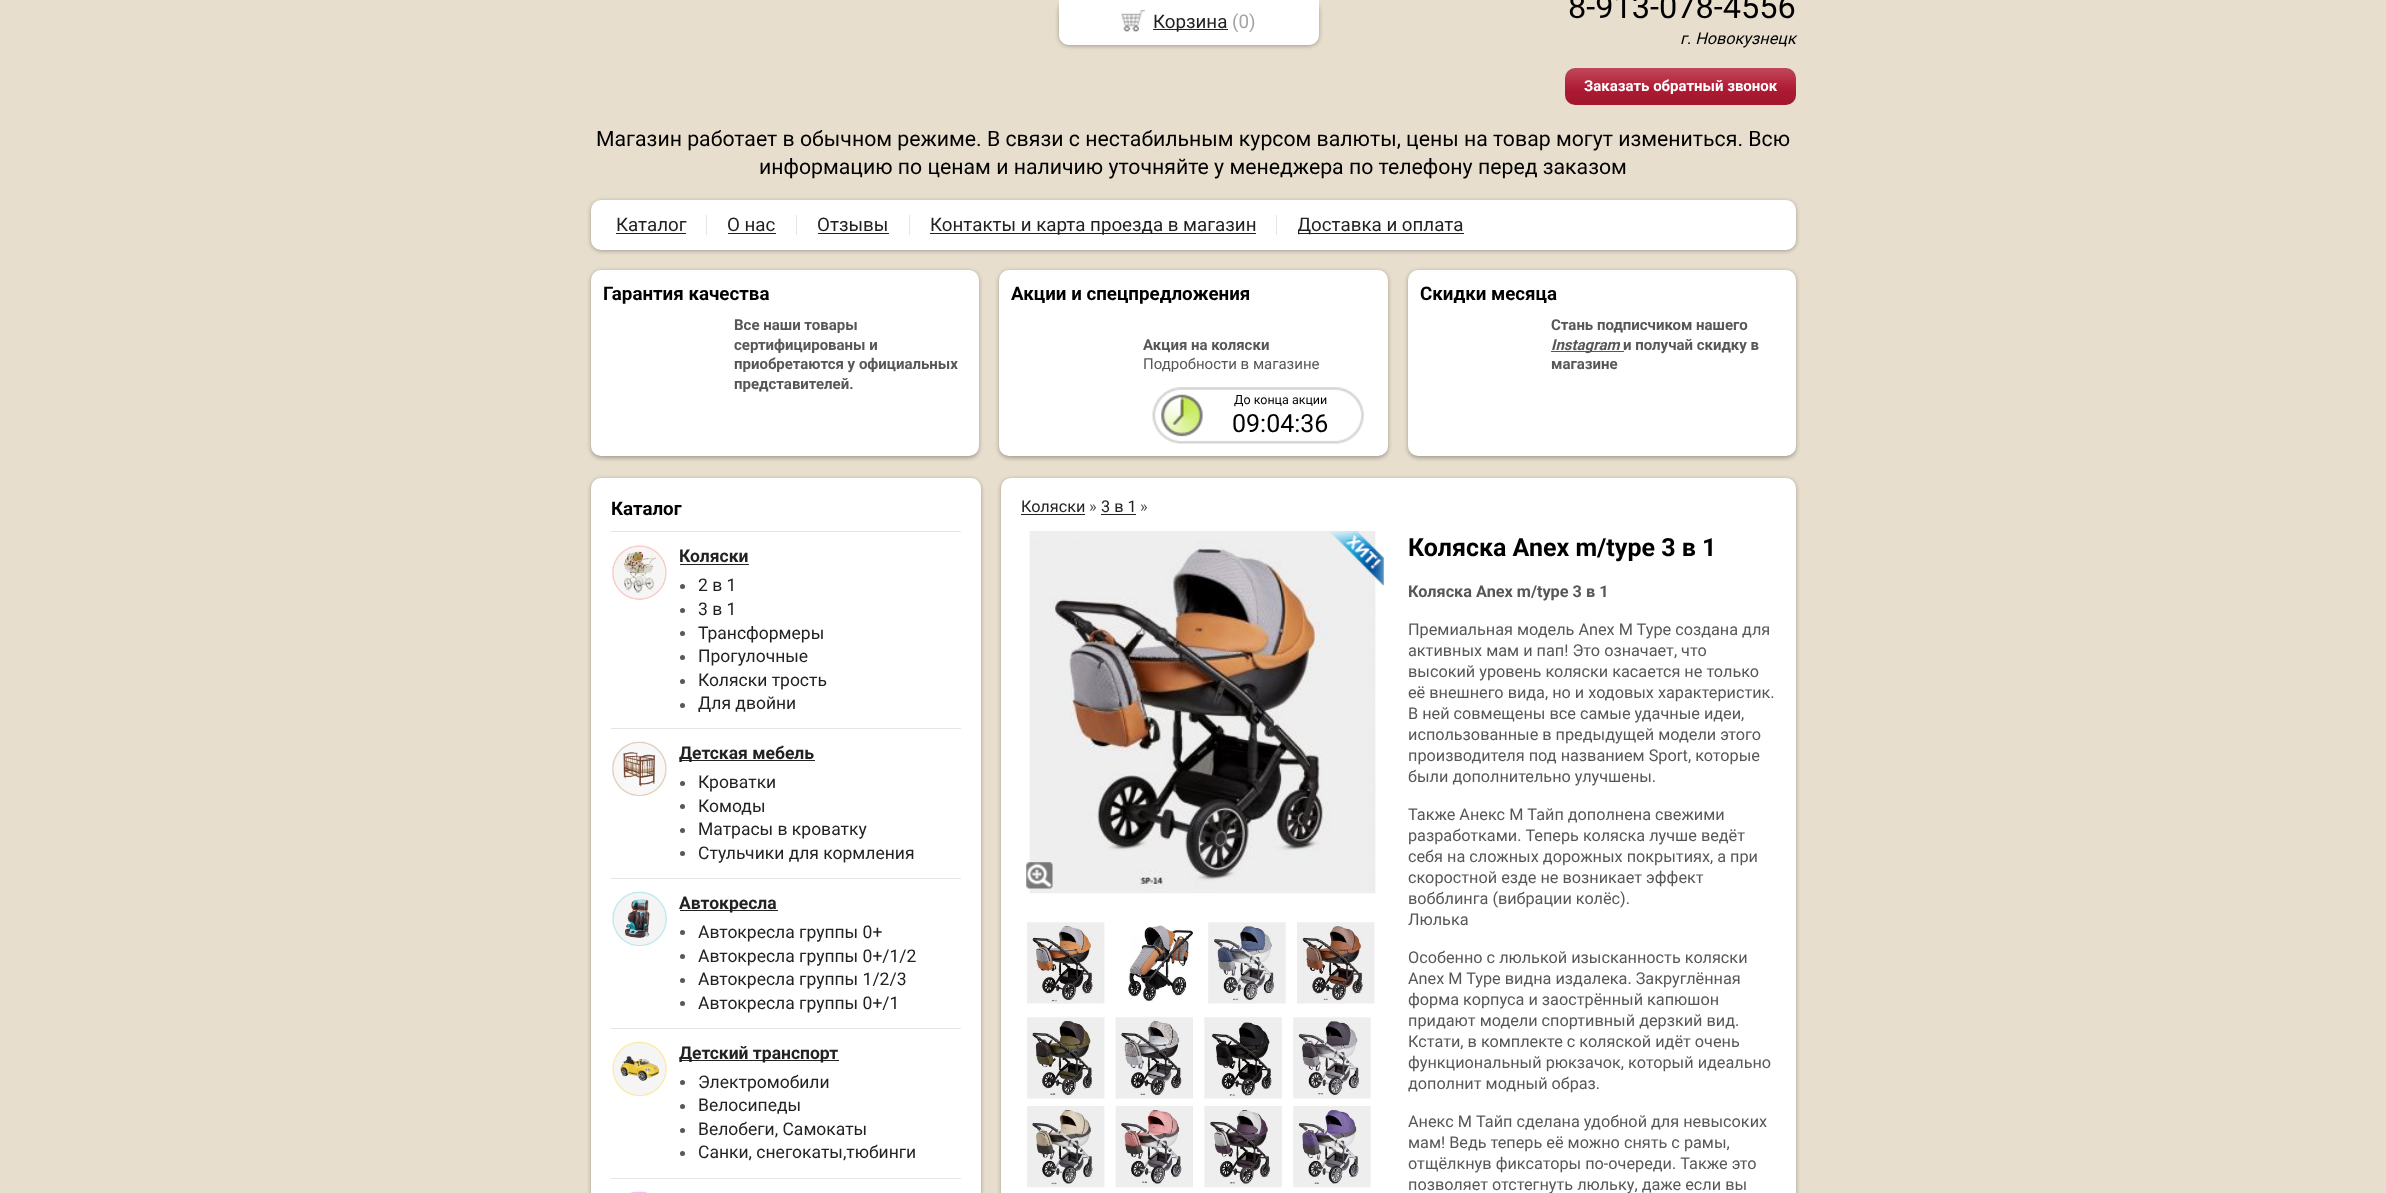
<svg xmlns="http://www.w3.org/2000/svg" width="2386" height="1193">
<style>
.a{font:32.5px Roboto;fill:#000}
.b{font:italic 16.25px Roboto;fill:#000}
.c{font:bold 15px Roboto;fill:#fff}
.d{font:21.25px Roboto;fill:#000}
.e{font:18.75px Roboto;fill:#222}
.f{font:bold 18.75px Roboto;fill:#000}
.g{font:bold 15px Roboto;fill:#575757}
.h{font:15px Roboto;fill:#575757}
.i{font:12.5px Roboto;fill:#000}
.j{font:25px Roboto;fill:#000}
.k{font:italic bold 15px Roboto;fill:#575757}
.l{font:bold 17.5px Roboto;fill:#222}
.m{font:17.5px Roboto;fill:#222}
.n{font:16.25px Roboto;fill:#222}
.o{font:16.25px Roboto;fill:#575757}
.p{font:bold 25px Roboto;fill:#000}
.q{font:bold 16.25px Roboto;fill:#575757}
.r{font:18.75px Roboto;fill:#a4a4a4}
</style>
<defs>
<clipPath id="clip1"><path d="M1298 215h166v20H1298z"/></clipPath>
</defs>
<rect width="100%" height="100%" fill="#e7decd"/>
<rect fill="#b01a33" x="1565" y="68" width="231" height="37" rx="10"/>
<image href="1.png" x="1565" y="67" width="231" height="38"/>
<rect fill="#0000004d" filter="blur(2px)" x="591" y="201" width="1205" height="50" rx="10"/>
<rect fill="#fff" x="591" y="200" width="1205" height="50" rx="10"/>
<path fill="#222" d="M616 233h70v1H616z"/>
<path fill="#e5e5e5" d="M706 215h1v20H706z"/>
<path fill="#222" d="M728 233h48v1H728z"/>
<path fill="#e5e5e5" d="M796 215h1v20H796z"/>
<path fill="#222" d="M818 233h71v1H818z"/>
<path fill="#e5e5e5" d="M909 215h1v20H909z"/>
<path fill="#222" d="M930 233h326v1H930z"/>
<path fill="#e5e5e5" d="M1276 215h1v20H1276z"/>
<path fill="#222" d="M1298 233h166v1H1298z"/>
<rect fill="#0000004d" filter="blur(2px)" x="591" y="271" width="388" height="187" rx="10"/>
<rect fill="#fff" x="591" y="270" width="388" height="186" rx="10"/>
<rect fill="#0000004d" filter="blur(2px)" x="999" y="271" width="389" height="187" rx="10"/>
<rect fill="#fff" x="999" y="270" width="389" height="186" rx="10"/>
<image href="2.png" x="1152" y="387" width="212" height="57"/>
<rect fill="#0000004d" filter="blur(2px)" x="1408" y="271" width="388" height="187" rx="10"/>
<rect fill="#fff" x="1408" y="270" width="388" height="186" rx="10"/>
<path fill="#575757" d="M1551 351h73v1H1551z"/>
<rect fill="#0000004d" filter="blur(2px)" x="591" y="479" width="390" height="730" rx="10"/>
<rect fill="#fff" x="591" y="478" width="390" height="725" rx="10"/>
<path fill="#e5e5e5" d="M611 531h350v1H611z"/>
<image href="3.png" x="612" y="545" width="55" height="55"/>
<path fill="#222" d="M680 564h69v1H680z"/>
<circle fill="#575757" cx="682.5" cy="586.5" r="2.5"/>
<circle fill="#575757" cx="682.5" cy="610.5" r="2.5"/>
<circle fill="#575757" cx="682.5" cy="633.5" r="2.5"/>
<circle fill="#575757" cx="682.5" cy="657.5" r="2.5"/>
<circle fill="#575757" cx="682.5" cy="681.5" r="2.5"/>
<circle fill="#575757" cx="682.5" cy="705.5" r="2.5"/>
<path fill="#e5e5e5" d="M611 728h350v1H611z"/>
<image href="4.png" x="612" y="741" width="55" height="55"/>
<path fill="#222" d="M680 760h135v1H680z"/>
<circle fill="#575757" cx="682.5" cy="783.5" r="2.5"/>
<circle fill="#575757" cx="682.5" cy="806.5" r="2.5"/>
<circle fill="#575757" cx="682.5" cy="830.5" r="2.5"/>
<circle fill="#575757" cx="682.5" cy="853.5" r="2.5"/>
<path fill="#e5e5e5" d="M611 878h350v1H611z"/>
<image href="5.png" x="612" y="891" width="55" height="55"/>
<path fill="#222" d="M680 910h98v1H680z"/>
<circle fill="#575757" cx="682.5" cy="932.5" r="2.5"/>
<circle fill="#575757" cx="682.5" cy="956.5" r="2.5"/>
<circle fill="#575757" cx="682.5" cy="980.5" r="2.5"/>
<circle fill="#575757" cx="682.5" cy="1003.5" r="2.5"/>
<path fill="#e5e5e5" d="M611 1028h350v1H611z"/>
<image href="6.png" x="612" y="1041" width="55" height="55"/>
<path fill="#222" d="M680 1060h159v1H680z"/>
<circle fill="#575757" cx="682.5" cy="1082.5" r="2.5"/>
<circle fill="#575757" cx="682.5" cy="1106.5" r="2.5"/>
<circle fill="#575757" cx="682.5" cy="1130.5" r="2.5"/>
<circle fill="#575757" cx="682.5" cy="1153.5" r="2.5"/>
<path fill="#e5e5e5" d="M611 1178h350v1H611z"/>
<image href="7.png" x="630" y="1191" width="17" height="2"/>
<rect fill="#0000004d" filter="blur(2px)" x="1001" y="479" width="795" height="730" rx="10"/>
<rect fill="#fff" x="1001" y="478" width="795" height="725" rx="10"/>
<path fill="#222" d="M1021 514h64v1H1021z"/>
<path fill="#222" d="M1101 514h35v1H1101z"/>
<image href="8.png" x="1029" y="531" width="347" height="363"/>
<image href="9.png" x="1026" y="862" width="27" height="27"/>
<image href="10.png" x="1329" y="531" width="55" height="55"/>
<image href="11.png" x="1027" y="922" width="78" height="82"/>
<image href="12.png" x="1128" y="925" width="65" height="77"/>
<image href="13.png" x="1208" y="922" width="78" height="82"/>
<image href="14.png" x="1297" y="922" width="78" height="82"/>
<image href="15.png" x="1027" y="1017" width="78" height="82"/>
<image href="16.png" x="1115" y="1017" width="78" height="82"/>
<image href="17.png" x="1204" y="1017" width="78" height="82"/>
<image href="18.png" x="1293" y="1017" width="78" height="82"/>
<image href="19.png" x="1027" y="1106" width="78" height="82"/>
<image href="20.png" x="1115" y="1106" width="78" height="82"/>
<image href="21.png" x="1204" y="1106" width="78" height="82"/>
<image href="22.png" x="1293" y="1106" width="78" height="82"/>
<rect fill="#0000004d" filter="blur(2px)" x="1059" y="1" width="260" height="45" rx="10"/>
<path fill="#fff" d="M1059 0h260v35c0 5.5-4.5 10-10 10h-240c-5.5 0-10-4.5-10-10z"/>
<image href="23.png" x="1121" y="10" width="24" height="22"/>
<path fill="#222" d="M1153 29h75v1H1153z"/>
<text class="a" x="1568" y="18">8-913-078-4556</text>
<text class="b" x="1680" y="44">г. Новокузнецк</text>
<text class="c" x="1584" y="91">Заказать обратный звонок</text>
<text class="d" x="596" y="146">Магазин работает в обычном режиме. В связи с нестабильным курсом валюты, цены на товар могут измениться. Всю</text>
<text class="d" x="759" y="174">информацию по ценам и наличию уточняйте у менеджера по телефону перед заказом</text>
<text class="e" x="616" y="231">Каталог</text>
<text class="e" x="727" y="231">О нас</text>
<text class="e" x="817" y="231">Отзывы</text>
<text class="e" x="930" y="231">Контакты и карта проезда в магазин</text>
<g clip-path="url(#clip1)">
<text class="e" x="1297" y="231">Доставка и оплата</text>
</g>
<text class="f" x="603" y="300">Гарантия качества</text>
<text class="g" x="734" y="330">Все наши товары</text>
<text class="g" x="734" y="350">сертифицированы и</text>
<text class="g" x="734" y="369">приобретаются у официальных</text>
<text class="g" x="734" y="389">представителей.</text>
<text class="f" x="1011" y="300">Акции и спецпредложения</text>
<text class="g" x="1143" y="350">Акция на коляски</text>
<text class="h" x="1143" y="369">Подробности в магазине</text>
<text class="i" x="1234" y="404">До конца акции</text>
<text class="j" x="1232" y="432">09:04:36</text>
<text class="f" x="1420" y="300">Скидки месяца</text>
<text class="g" x="1551" y="330">Стань подписчиком нашего</text>
<text class="k" x="1551" y="350">Instagram</text>
<text class="g" x="1623" y="350">и получай скидку в</text>
<text class="g" x="1551" y="369">магазине</text>
<text class="f" x="611" y="515">Каталог</text>
<text class="l" x="679" y="562">Коляски</text>
<text class="m" x="698" y="591">2 в 1</text>
<text class="m" x="698" y="615">3 в 1</text>
<text class="m" x="698" y="639">Трансформеры</text>
<text class="m" x="698" y="662">Прогулочные</text>
<text class="m" x="698" y="686">Коляски трость</text>
<text class="m" x="698" y="709">Для двойни</text>
<text class="l" x="679" y="759">Детская мебель</text>
<text class="m" x="698" y="788">Кроватки</text>
<text class="m" x="698" y="812">Комоды</text>
<text class="m" x="698" y="835">Матрасы в кроватку</text>
<text class="m" x="698" y="859">Стульчики для кормления</text>
<text class="l" x="679" y="909">Автокресла</text>
<text class="m" x="698" y="938">Автокресла группы 0+</text>
<text class="m" x="698" y="962">Автокресла группы 0+/1/2</text>
<text class="m" x="698" y="985">Автокресла группы 1/2/3</text>
<text class="m" x="698" y="1009">Автокресла группы 0+/1</text>
<text class="l" x="679" y="1059">Детский транспорт</text>
<text class="m" x="698" y="1088">Электромобили</text>
<text class="m" x="698" y="1111">Велосипеды</text>
<text class="m" x="698" y="1135">Велобеги, Самокаты</text>
<text class="m" x="698" y="1158">Санки, снегокаты,тюбинги</text>
<text class="n" x="1021" y="512">Коляски</text>
<text class="o" x="1089" y="512">»</text>
<text class="n" x="1101" y="512">3 в 1</text>
<text class="o" x="1140" y="512">»</text>
<text class="p" x="1408" y="556">Коляска Anex m/type 3 в 1</text>
<text class="q" x="1408" y="597">Коляска Anex m/type 3 в 1</text>
<text class="o" x="1408" y="635">Премиальная модель Anex M Type создана для</text>
<text class="o" x="1408" y="656">активных мам и пап! Это означает, что</text>
<text class="o" x="1408" y="677">высокий уровень коляски касается не только</text>
<text class="o" x="1408" y="698">её внешнего вида, но и ходовых характеристик.</text>
<text class="o" x="1408" y="719">В ней совмещены все самые удачные идеи,</text>
<text class="o" x="1408" y="740">использованные в предыдущей модели этого</text>
<text class="o" x="1408" y="761">производителя под названием Sport, которые</text>
<text class="o" x="1408" y="782">были дополнительно улучшены.</text>
<text class="o" x="1408" y="820">Также Анекс М Тайп дополнена свежими</text>
<text class="o" x="1408" y="841">разработками. Теперь коляска лучше ведёт</text>
<text class="o" x="1408" y="862">себя на сложных дорожных покрытиях, а при</text>
<text class="o" x="1408" y="883">скоростной езде не возникает эффект</text>
<text class="o" x="1408" y="904">вобблинга (вибрации колёс).</text>
<text class="o" x="1408" y="925">Люлька</text>
<text class="o" x="1408" y="963">Особенно с люлькой изысканность коляски</text>
<text class="o" x="1408" y="984">Anex M Type видна издалека. Закруглённая</text>
<text class="o" x="1408" y="1005">форма корпуса и заострённый капюшон</text>
<text class="o" x="1408" y="1026">придают модели спортивный дерзкий вид.</text>
<text class="o" x="1408" y="1047">Кстати, в комплекте с коляской идёт очень</text>
<text class="o" x="1408" y="1068">функциональный рюкзачок, который идеально</text>
<text class="o" x="1408" y="1089">дополнит модный образ.</text>
<text class="o" x="1408" y="1127">Анекс М Тайп сделана удобной для невысоких</text>
<text class="o" x="1408" y="1148">мам! Ведь теперь её можно снять с рамы,</text>
<text class="o" x="1408" y="1169">отщёлкнув фиксаторы по-очереди. Также это</text>
<text class="o" x="1408" y="1190">позволяет отстегнуть люльку, даже если вы</text>
<text class="e" x="1153" y="28">Корзина</text>
<text class="r" x="1232" y="28">(0)</text>
</svg>
